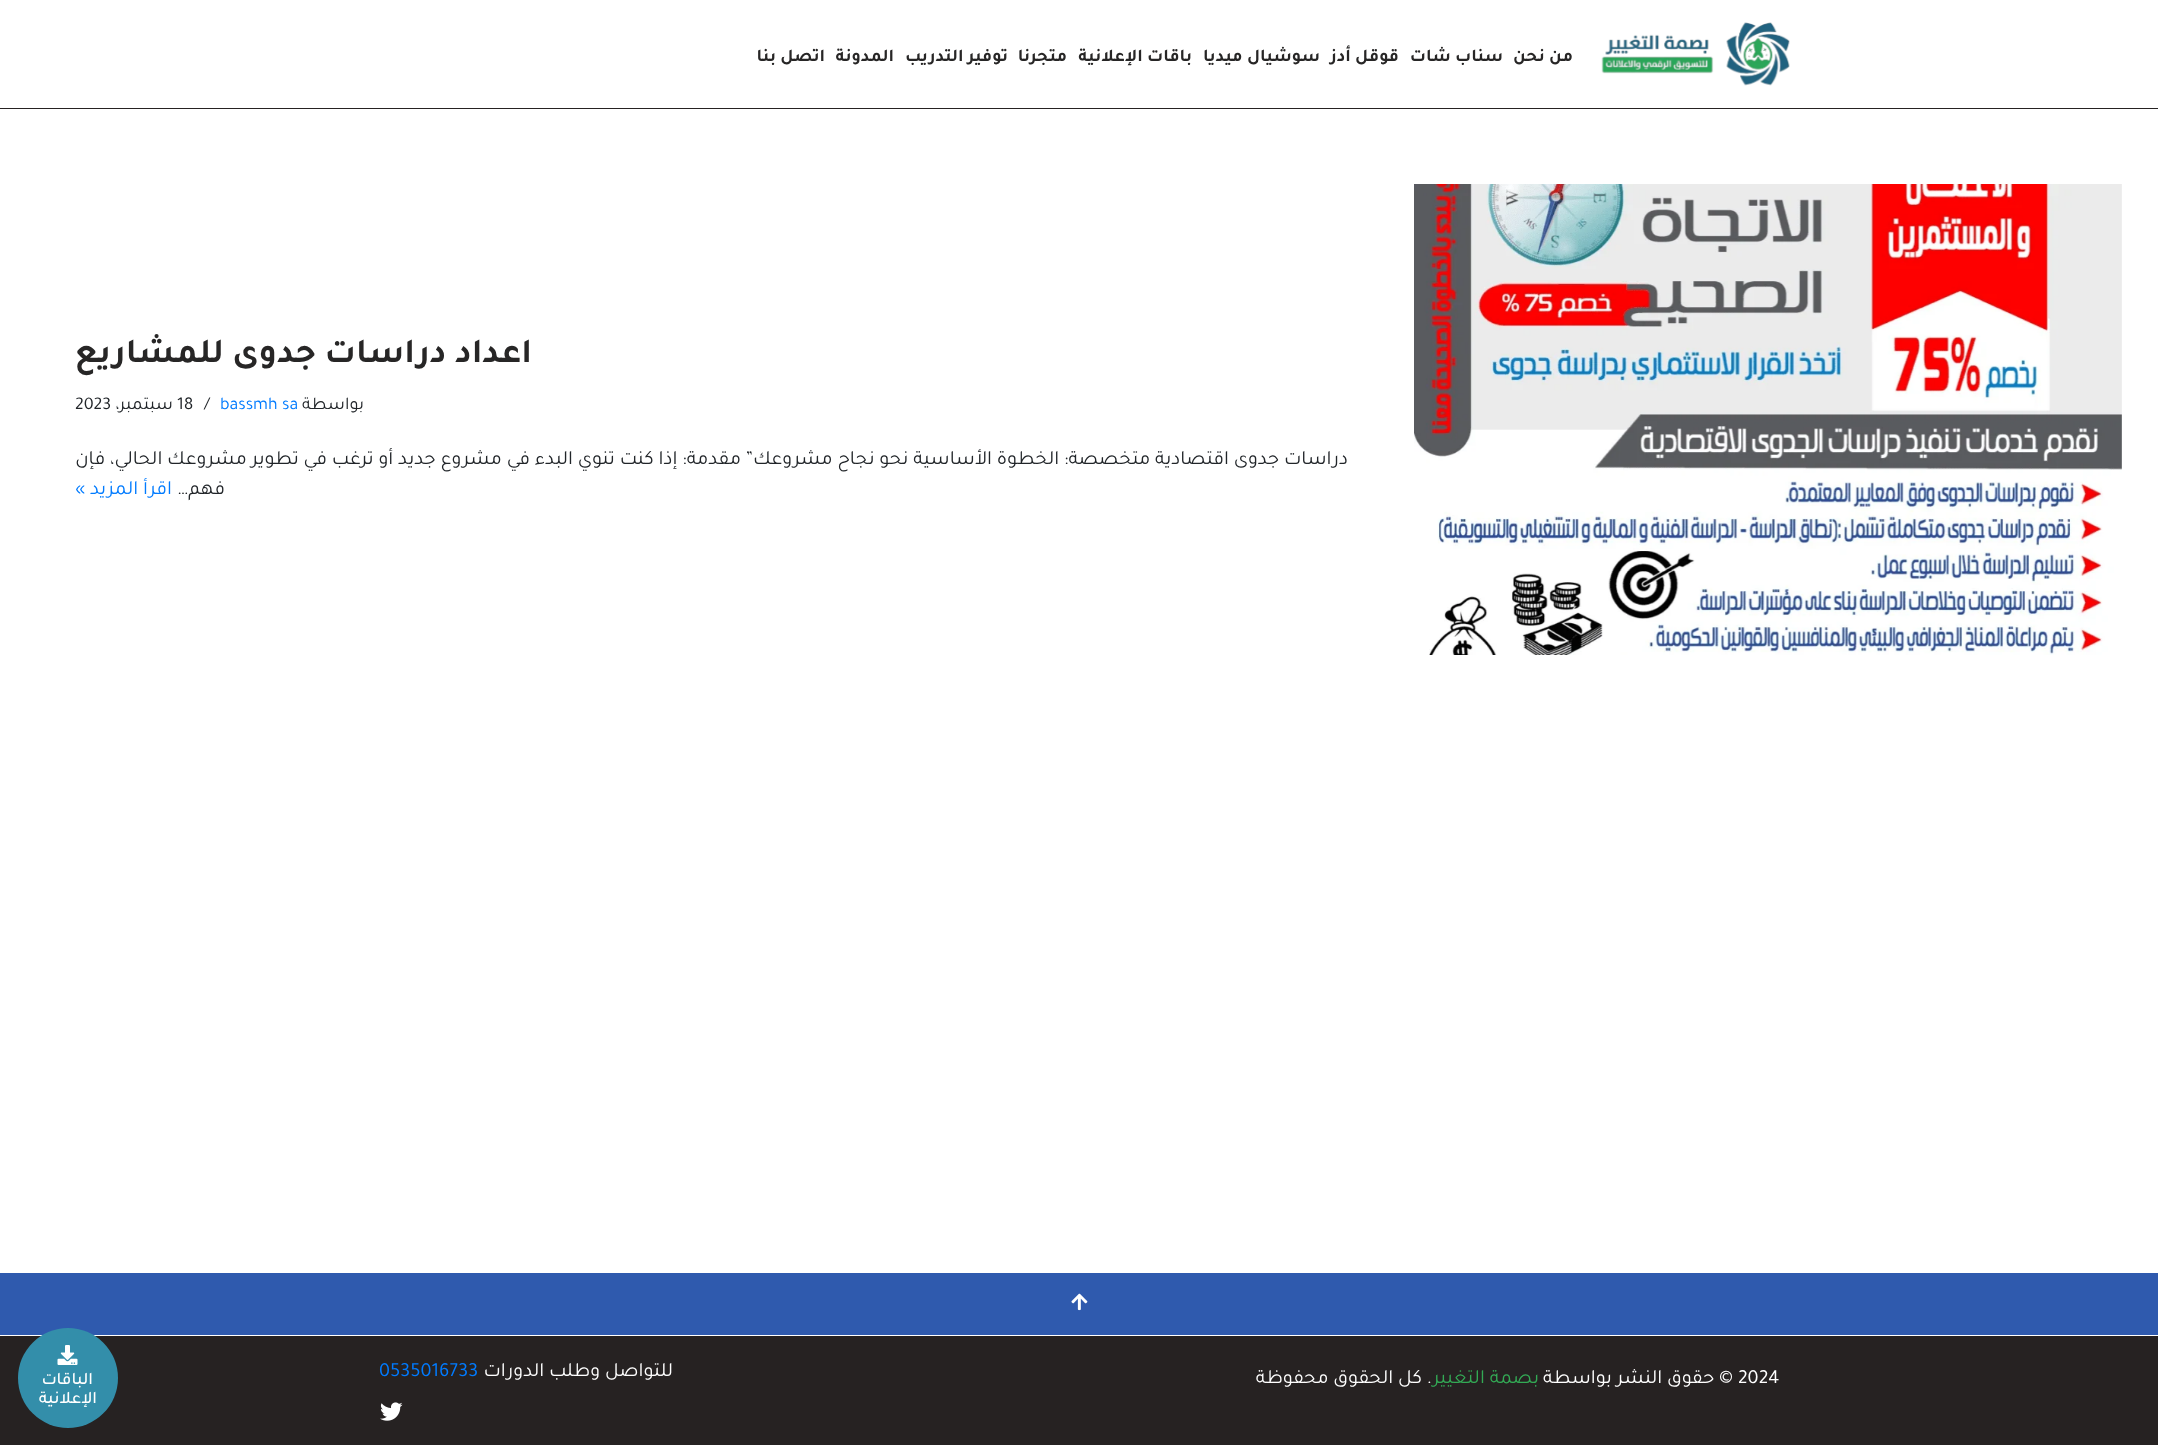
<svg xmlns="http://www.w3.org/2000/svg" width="2158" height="1445">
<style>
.a{font:bold 18px Tajawal;direction:rtl;fill:#272626}
.b{font:bold 35px Tajawal;direction:rtl;fill:#272626}
.c{font:18px Tajawal;direction:rtl;fill:#212529}
.d{font:18px Tajawal;fill:#007bff}
.e{font:18px Tajawal;fill:#212529}
.f{font:20px Tajawal;direction:rtl;fill:#212529}
.g{font:20px Tajawal;direction:rtl;fill:#007bff}
.h{font:20px Tajawal;fill:#fff}
.i{font:20px Tajawal;direction:rtl;fill:#fff}
.j{font:20px Tajawal;direction:rtl;fill:#3a5}
.k{font:20px Tajawal;fill:#007bff}
.l{font:500 17.5px Tajawal;direction:rtl;fill:#fff}
</style>
<rect width="100%" height="100%" fill="#fff"/>
<path fill="#262222" d="M0 108h2158v1H0z"/>
<image href="1.png" x="1601" y="22" width="189" height="64"/>
<image href="2.png" x="1414" y="184" width="708" height="471"/>
<path fill="#2f5aae" d="M0 1273h2158v62H0z"/>
<image href="3.png" x="1071" y="1293" width="17" height="18"/>
<path fill="#262222" d="M0 1336h2158v109H0z"/>
<image href="4.png" x="380" y="1402" width="23" height="19"/>
<circle fill="#338eaa" cx="68" cy="1378" r="50"/>
<image href="5.png" x="57" y="1345" width="21" height="20"/>
<text class="a" x="1573" y="61">من نحن</text>
<text class="a" x="1503" y="61">سناب شات</text>
<text class="a" x="1399" y="61">قوقل أدز</text>
<text class="a" x="1320" y="61">سوشيال ميديا</text>
<text class="a" x="1192" y="61">باقات الإعلانية</text>
<text class="a" x="1067" y="61">متجرنا</text>
<text class="a" x="1008" y="61">توفير التدريب</text>
<text class="a" x="894" y="61">المدونة</text>
<text class="a" x="825" y="61">اتصل بنا</text>
<text class="b" x="532" y="362">اعداد دراسات جدوى للمشاريع</text>
<text class="c" x="364" y="409">بواسطة</text>
<text class="d" x="220" y="409">bassmh sa</text>
<text class="e" x="204" y="409">/</text>
<text class="e" x="177" y="409">18</text>
<text class="c" x="173" y="409">سبتمبر،</text>
<text class="e" x="75" y="409">2023</text>
<text class="f" x="1348" y="464">دراسات جدوى اقتصادية متخصصة: الخطوة الأساسية نحو نجاح مشروعك” مقدمة: إذا كنت تنوي البدء في مشروع جديد أو ترغب في تطوير مشروعك الحالي، فإن</text>
<text class="f" x="225" y="494">فهم…</text>
<text class="g" x="172" y="494">اقرأ المزيد »</text>
<text class="h" x="1738" y="1383">2024</text>
<text class="i" x="1733" y="1383">© حقوق النشر بواسطة</text>
<text class="j" x="1539" y="1383">بصمة التغيير</text>
<text class="i" x="1432" y="1383">. كل الحقوق محفوظة</text>
<text class="i" x="673" y="1376">للتواصل وطلب الدورات</text>
<text class="k" x="379" y="1376">0535016733</text>
<text class="l" x="93" y="1384">الباقات</text>
<text class="l" x="97" y="1403">الإعلانية</text>
</svg>
